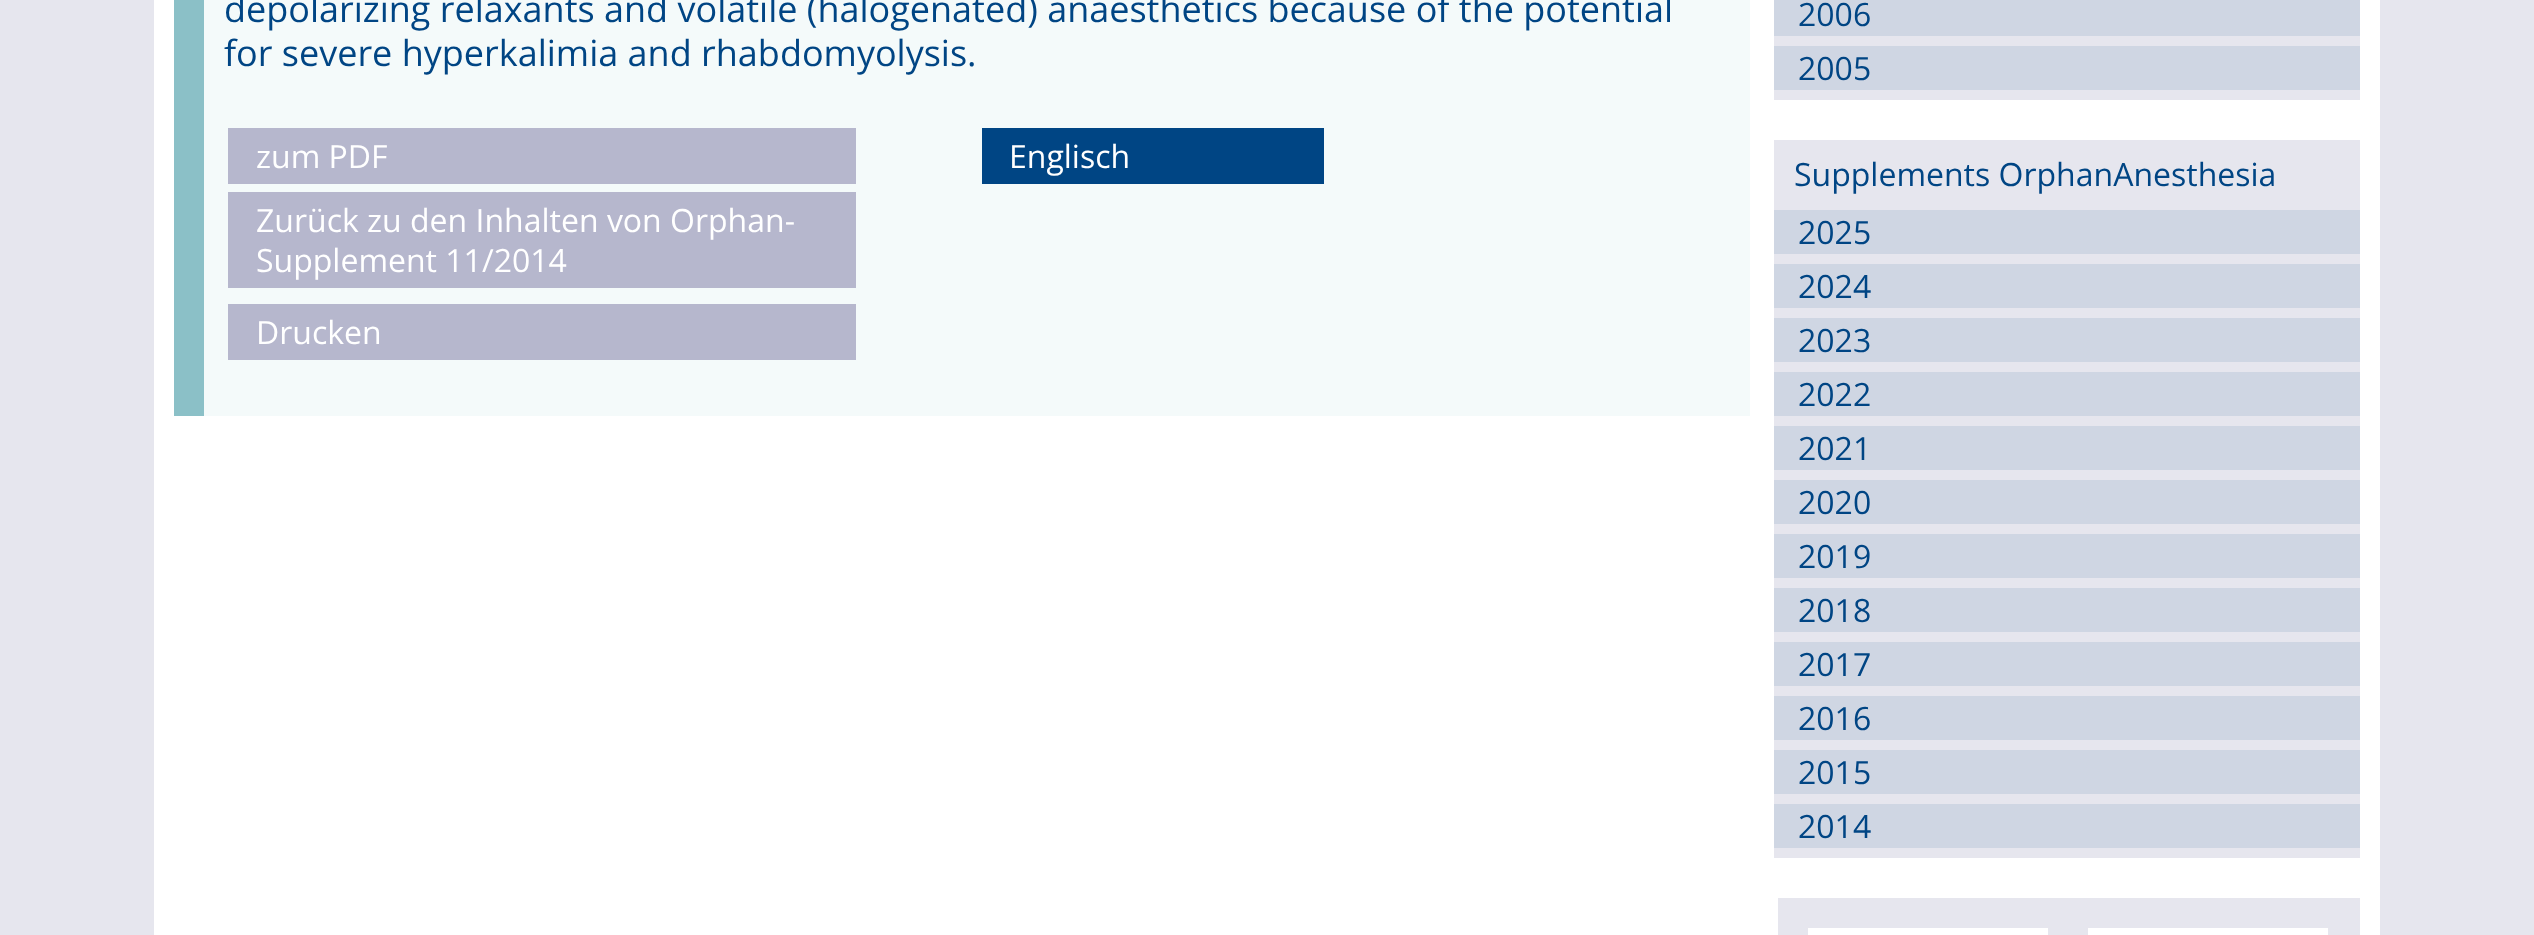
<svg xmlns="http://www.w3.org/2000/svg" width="2534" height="935">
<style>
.a{font:36px Open Sans;fill:#004584}
.b{font:32px Open Sans;fill:#fff}
.c{font:32px Open Sans;fill:#004584}
</style>
<rect width="100%" height="100%" fill="#e6e6ee"/>
<path fill="#fff" d="M154 0h2226v935H154z"/>
<path fill="#f4fafa" d="M204 0h1546v416H204z"/>
<path fill="#8bc0c7" d="M174 0h30v416H174z"/>
<path fill="#b6b7cd" d="M228 128h628v56H228z"/>
<path fill="#b6b7cd" d="M228 192h628v96H228z"/>
<path fill="#b6b7cd" d="M228 304h628v56H228z"/>
<path fill="#004584" d="M982 128h342v56H982z"/>
<path fill="#e6e6ee" d="M1774 36h586v64H1774z"/>
<path fill="#cfd6e3" d="M1774 0h586v36H1774z"/>
<path fill="#cfd6e3" d="M1774 46h586v44H1774z"/>
<path fill="#e6e6ee" d="M1774 140h586v718H1774z"/>
<path fill="#cfd6e3" d="M1774 210h586v44H1774z"/>
<path fill="#cfd6e3" d="M1774 264h586v44H1774z"/>
<path fill="#cfd6e3" d="M1774 318h586v44H1774z"/>
<path fill="#cfd6e3" d="M1774 372h586v44H1774z"/>
<path fill="#cfd6e3" d="M1774 426h586v44H1774z"/>
<path fill="#cfd6e3" d="M1774 480h586v44H1774z"/>
<path fill="#cfd6e3" d="M1774 534h586v44H1774z"/>
<path fill="#cfd6e3" d="M1774 588h586v44H1774z"/>
<path fill="#cfd6e3" d="M1774 642h586v44H1774z"/>
<path fill="#cfd6e3" d="M1774 696h586v44H1774z"/>
<path fill="#cfd6e3" d="M1774 750h586v44H1774z"/>
<path fill="#cfd6e3" d="M1774 804h586v44H1774z"/>
<path fill="#e6e6ee" d="M1778 898h582v37H1778z"/>
<path fill="#fff" d="M1808 928h240v7H1808z"/>
<path fill="#fff" d="M2088 928h240v7H2088z"/>
<text class="a" x="224" y="22">depolarizing relaxants and volatile (halogenated) anaesthetics because of the potential</text>
<text class="a" x="224" y="66">for severe hyperkalimia and rhabdomyolysis.</text>
<text class="b" x="256" y="168">zum PDF</text>
<text class="b" x="256" y="232">Zurück zu den Inhalten von Orphan-</text>
<text class="b" x="256" y="272">Supplement 11/2014</text>
<text class="b" x="256" y="344">Drucken</text>
<text class="b" x="1009" y="168">Englisch</text>
<text class="c" x="1798" y="26">2006</text>
<text class="c" x="1798" y="80">2005</text>
<text class="c" x="1794" y="186">Supplements OrphanAnesthesia</text>
<text class="c" x="1798" y="244">2025</text>
<text class="c" x="1798" y="298">2024</text>
<text class="c" x="1798" y="352">2023</text>
<text class="c" x="1798" y="406">2022</text>
<text class="c" x="1798" y="460">2021</text>
<text class="c" x="1798" y="514">2020</text>
<text class="c" x="1798" y="568">2019</text>
<text class="c" x="1798" y="622">2018</text>
<text class="c" x="1798" y="676">2017</text>
<text class="c" x="1798" y="730">2016</text>
<text class="c" x="1798" y="784">2015</text>
<text class="c" x="1798" y="838">2014</text>
</svg>
